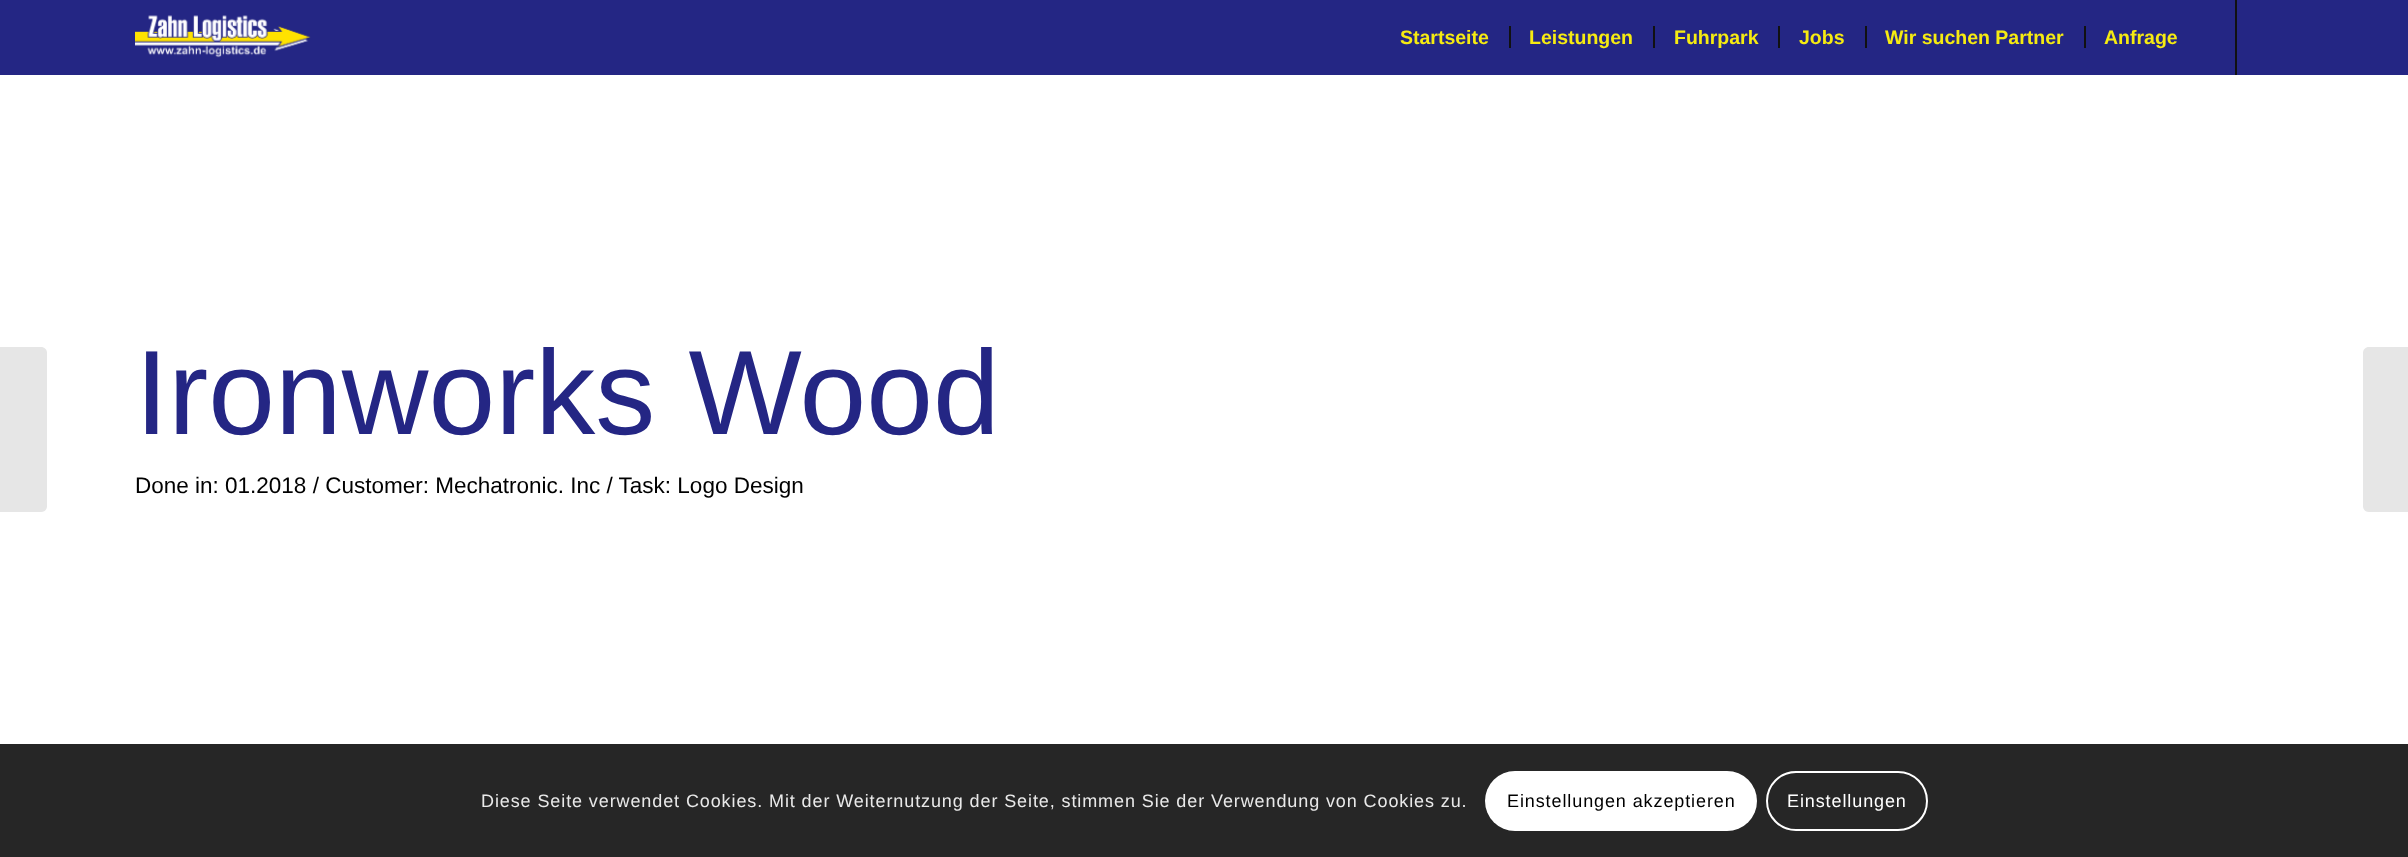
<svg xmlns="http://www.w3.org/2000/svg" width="2408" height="857">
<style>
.a{font:bold 19.5px Liberation Sans;fill:#f6eb11}
.b{font:120px Liberation Sans;fill:#242684}
.c{font:22.5px Liberation Sans;fill:#000}
.d{font:18px Liberation Sans;letter-spacing:0.9px;fill:#e9e9e9}
.e{font:18px Liberation Sans;letter-spacing:0.9px;fill:#000}
.f{font:18px Liberation Sans;letter-spacing:0.9px;fill:#fff}
</style>
<rect width="100%" height="100%" fill="#fff"/>
<path fill="#242684" d="M0 0h2408v75H0z"/>
<image href="1.png" x="135" y="15" width="176" height="43"/>
<path fill="#111" d="M2235 0h2v75H2235z"/>
<path fill="#111" d="M1509 26h2v22H1509z"/>
<path fill="#111" d="M1653 26h2v22H1653z"/>
<path fill="#111" d="M1778 26h2v22H1778z"/>
<path fill="#111" d="M1865 26h2v22H1865z"/>
<path fill="#111" d="M2084 26h2v22H2084z"/>
<path fill="#e6e6e6" d="M0 347h41c3.5 0 6 2.5 6 6v153c0 3.5-2.5 6-6 6h-41z"/>
<path fill="#e6e6e6" d="M2369 347h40v165h-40c-3.5 0-6-2.5-6-6v-153c0-3.5 2.5-6 6-6z"/>
<path fill="#262626" d="M0 744h2408v113H0z"/>
<rect fill="#fff" x="1485" y="771" width="272" height="60" rx="30"/>
<rect fill="none" stroke="#fff" stroke-width="2" x="1767" y="772" width="160" height="58" rx="29"/>
<text class="a" x="1400" y="44">Startseite</text>
<text class="a" x="1529" y="44">Leistungen</text>
<text class="a" x="1674" y="44">Fuhrpark</text>
<text class="a" x="1799" y="44">Jobs</text>
<text class="a" x="1885" y="44">Wir suchen Partner</text>
<text class="a" x="2104" y="44">Anfrage</text>
<text class="b" x="135" y="434">Ironworks Wood</text>
<text class="c" x="135" y="493">Done in: 01.2018 / Customer: Mechatronic. Inc / Task: Logo Design</text>
<text class="d" x="481" y="807">Diese Seite verwendet Cookies. Mit der Weiternutzung der Seite, stimmen Sie der Verwendung von Cookies zu.</text>
<text class="e" x="1507" y="807">Einstellungen akzeptieren</text>
<text class="f" x="1787" y="807">Einstellungen</text>
</svg>
